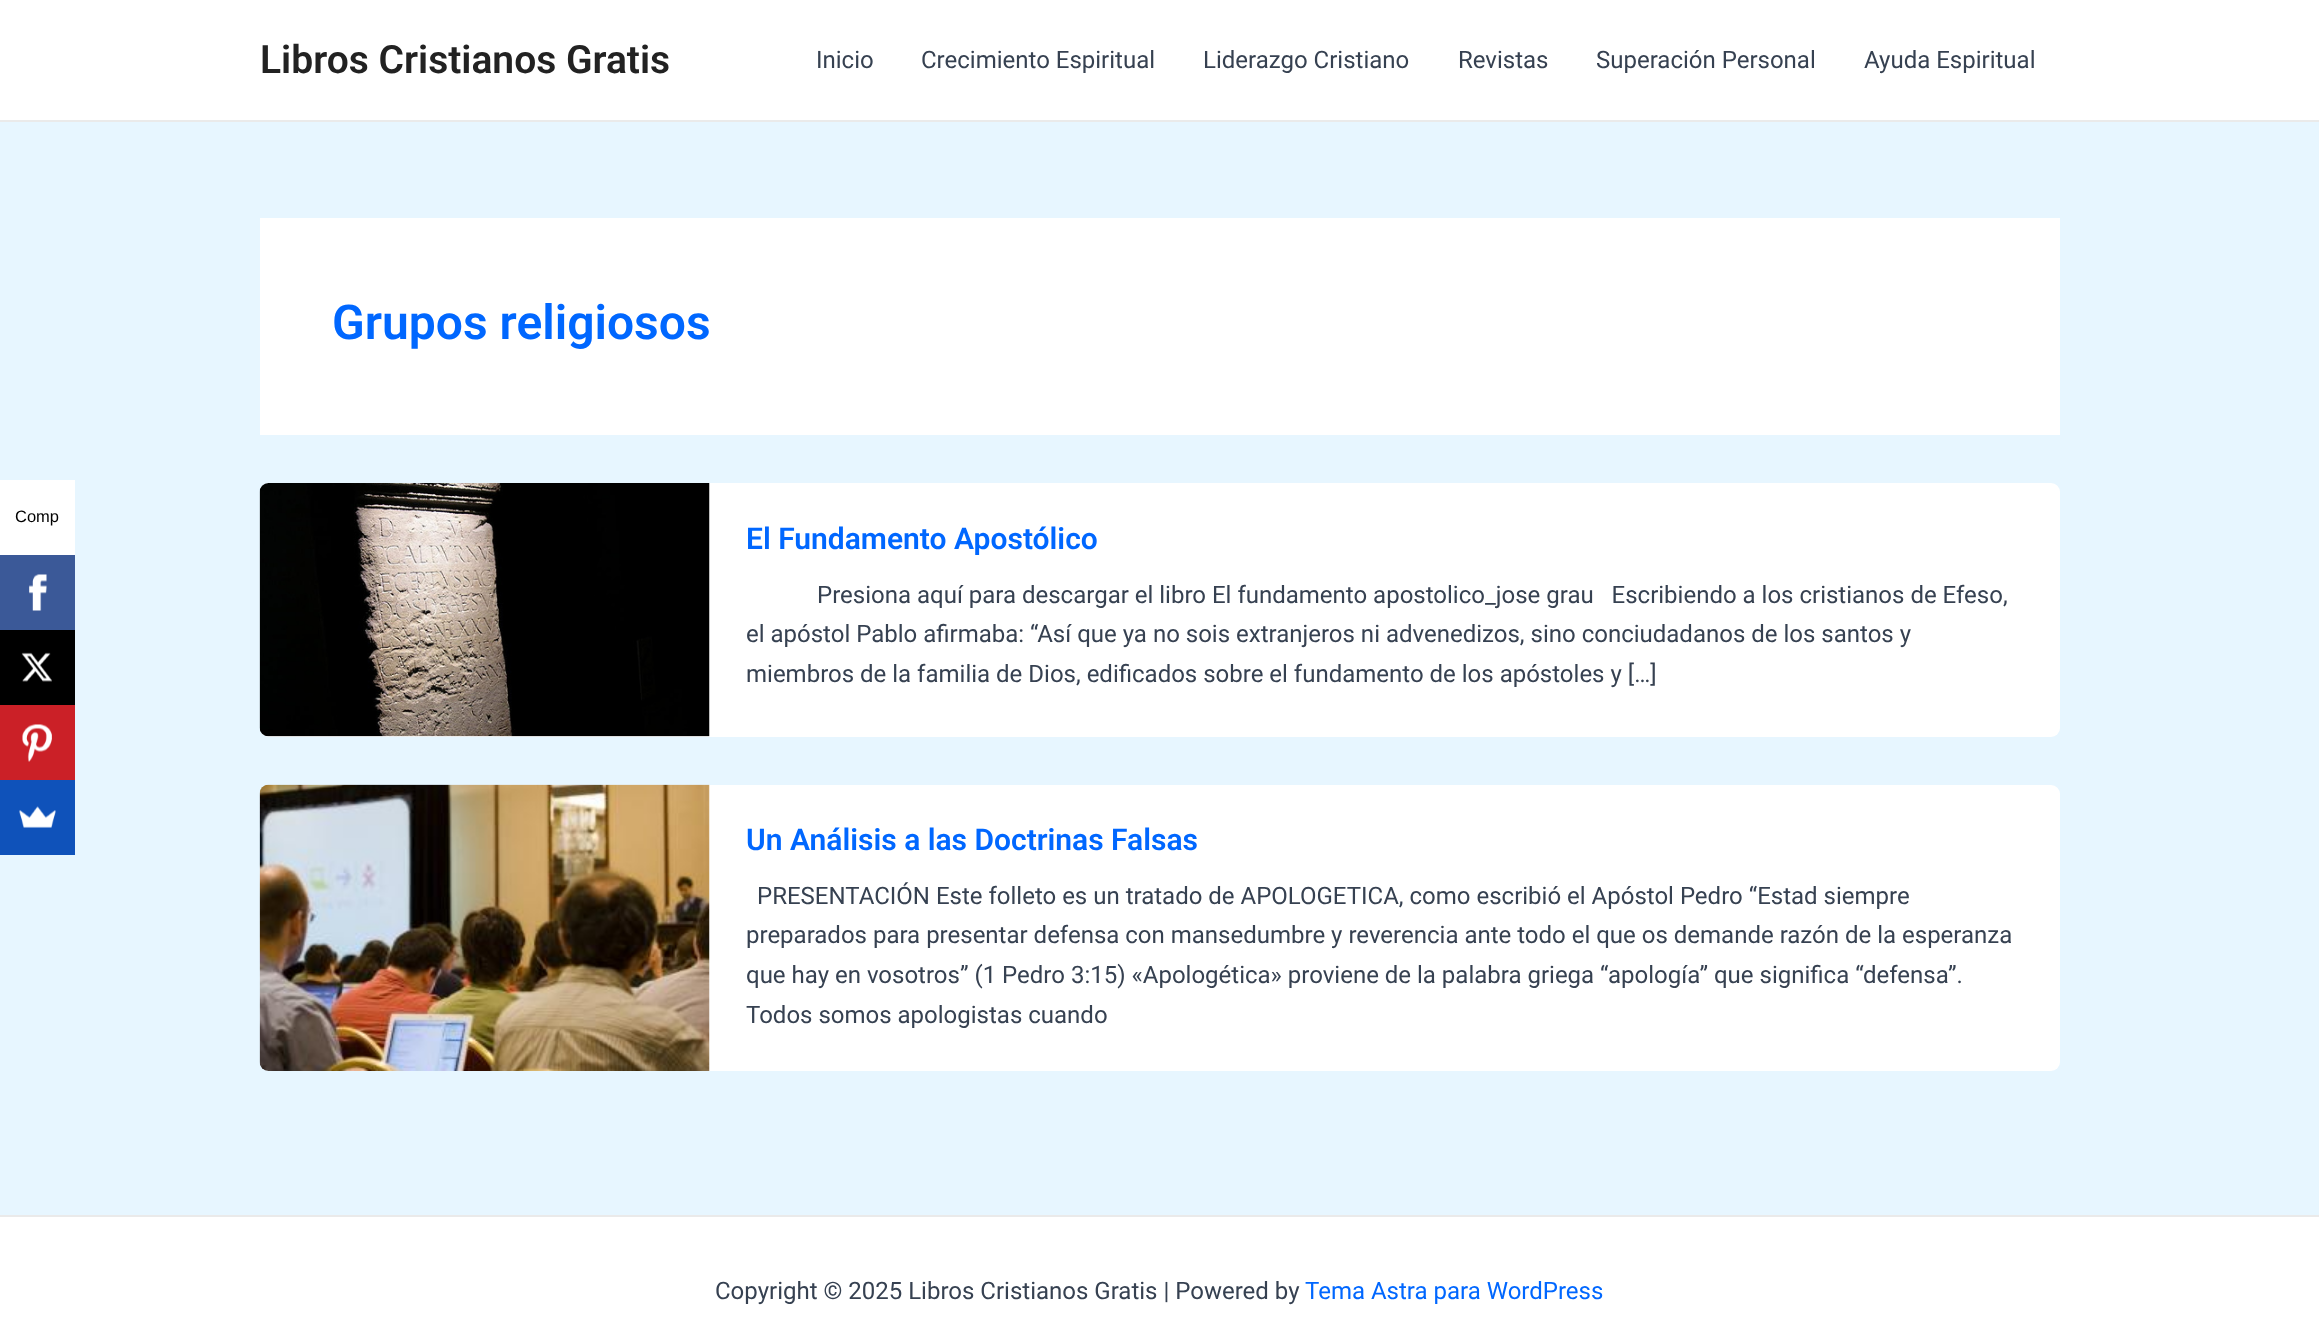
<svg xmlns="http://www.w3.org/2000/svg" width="2319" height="1333">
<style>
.a{font:16.5px Liberation Sans;fill:#000}
.b{font:600 39px Roboto;fill:#222}
.c{font:24px Roboto;fill:#364151}
.d{font:600 48px Roboto;fill:#0067ff}
.e{font:600 30px Roboto;fill:#0067ff}
.f{font:24px Roboto;fill:#0067ff}
</style>
<rect width="100%" height="100%" fill="#e7f6ff"/>
<path fill="#fff" d="M0 480h75v75H0z"/>
<path fill="#3b5998" d="M0 555h75v75H0z"/>
<image href="1.png" x="29" y="574" width="18" height="37"/>
<path fill="#000" d="M0 630h75v75H0z"/>
<image href="2.png" x="21" y="652" width="31" height="30"/>
<path fill="#cb2027" d="M0 705h75v75H0z"/>
<image href="3.png" x="22" y="724" width="30" height="38"/>
<path fill="#0f52ba" d="M0 780h75v75H0z"/>
<image href="4.png" x="19" y="806" width="37" height="22"/>
<path fill="#fff" d="M0 0h2319v120H0z"/>
<path fill="#eaeaea" d="M0 120h2319v2H0z"/>
<path fill="#fff" d="M260 218h1800v217H260z"/>
<rect fill="#fff" x="260" y="483" width="1800" height="254" rx="9"/>
<image href="5.png" x="259" y="483" width="451" height="254"/>
<rect fill="#fff" x="260" y="785" width="1800" height="286" rx="9"/>
<image href="6.png" x="259" y="784" width="451" height="287"/>
<path fill="#fff" d="M0 1217h2319v116H0z"/>
<path fill="#eaeaea" d="M0 1215h2319v2H0z"/>
<text class="a" x="15" y="522">Comp</text>
<text class="b" x="260" y="73">Libros Cristianos Gratis</text>
<text class="c" x="816" y="68">Inicio</text>
<text class="c" x="921" y="68">Crecimiento Espiritual</text>
<text class="c" x="1203" y="68">Liderazgo Cristiano</text>
<text class="c" x="1458" y="68">Revistas</text>
<text class="c" x="1596" y="68">Superación Personal</text>
<text class="c" x="1864" y="68">Ayuda Espiritual</text>
<text class="d" x="332" y="339">Grupos religiosos</text>
<text class="e" x="746" y="549">El Fundamento Apostólico</text>
<text class="c" xml:space="preserve" x="817" y="603">Presiona aquí para descargar el libro El fundamento apostolico_jose grau   Escribiendo a los cristianos de Efeso,</text>
<text class="c" x="746" y="642">el apóstol Pablo afirmaba: “Así que ya no sois extranjeros ni advenedizos, sino conciudadanos de los santos y</text>
<text class="c" x="746" y="682">miembros de la familia de Dios, edificados sobre el fundamento de los apóstoles y […]</text>
<text class="e" x="746" y="850">Un Análisis a las Doctrinas Falsas</text>
<text class="c" x="757" y="904">PRESENTACIÓN Este folleto es un tratado de APOLOGETICA, como escribió el Apóstol Pedro “Estad siempre</text>
<text class="c" x="746" y="943">preparados para presentar defensa con mansedumbre y reverencia ante todo el que os demande razón de la esperanza</text>
<text class="c" x="746" y="983">que hay en vosotros” (1 Pedro 3:15) «Apologética» proviene de la palabra griega “apología” que significa “defensa”.</text>
<text class="c" x="746" y="1023">Todos somos apologistas cuando</text>
<text class="c" x="715" y="1299">Copyright © 2025 Libros Cristianos Gratis | Powered by</text>
<text class="f" x="1305" y="1299">Tema Astra para WordPress</text>
</svg>
